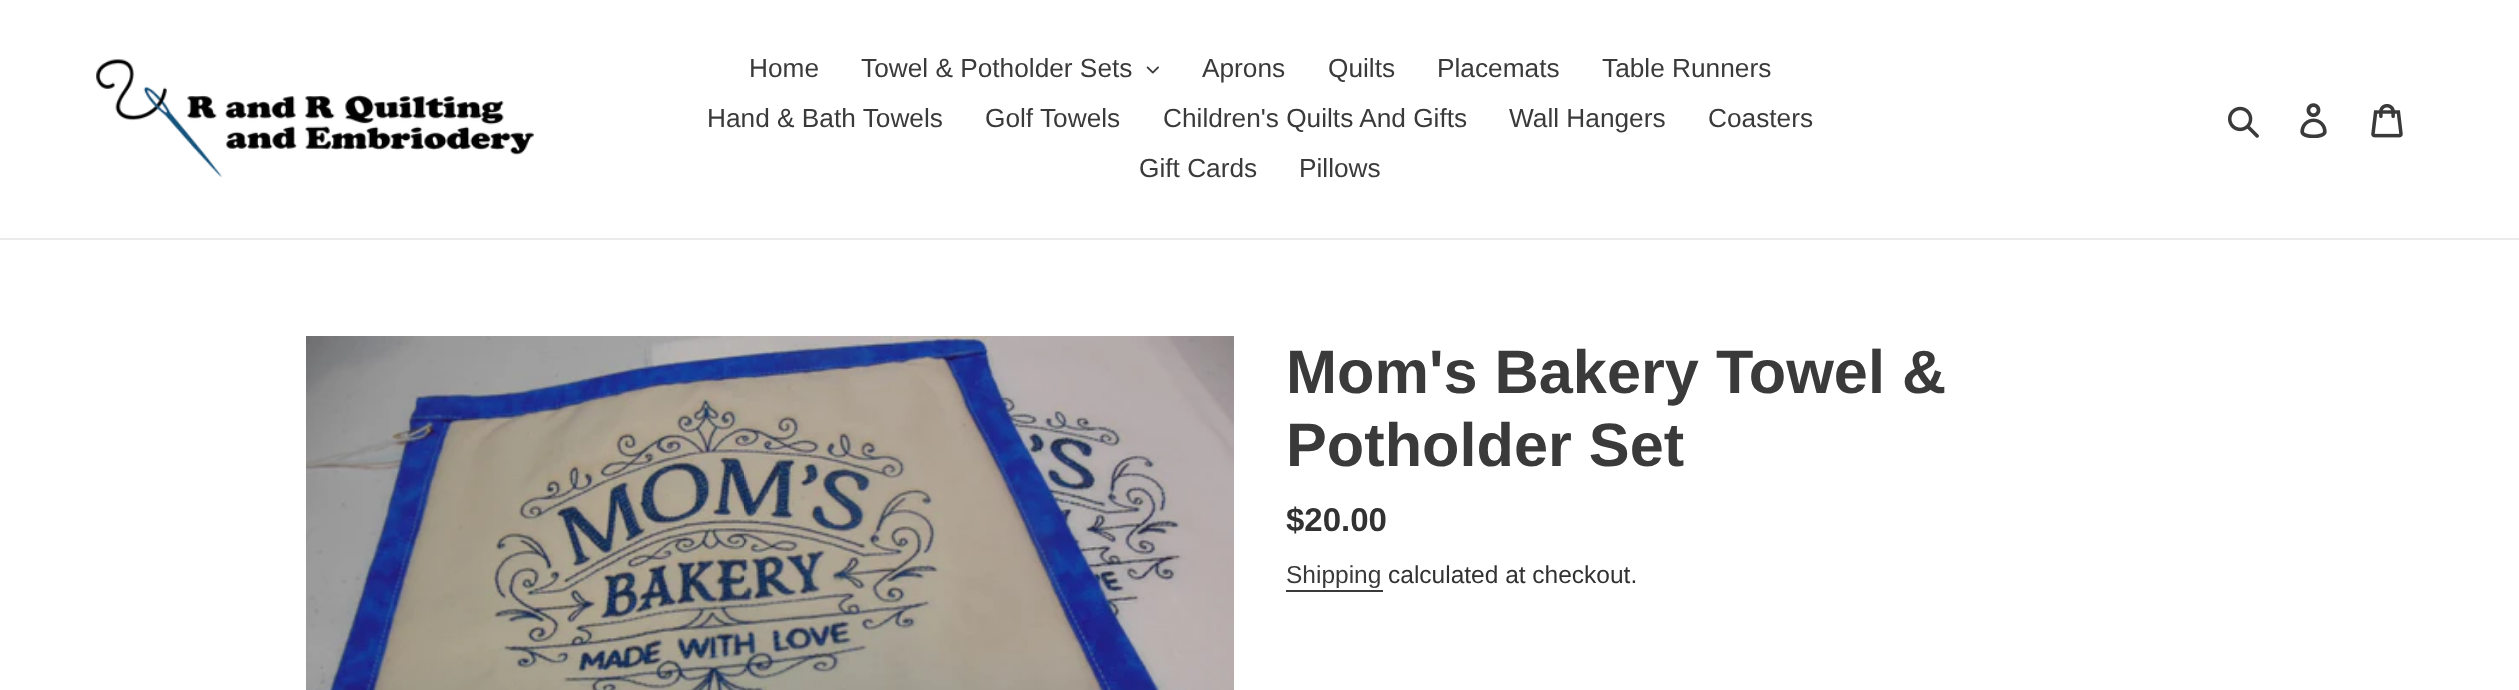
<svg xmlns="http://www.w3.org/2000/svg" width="2519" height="690">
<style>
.a{font:26.25px Liberation Sans;fill:#3a3a3a}
.b{font:bold 61.25px Liberation Sans;fill:#3a3a3a}
.c{font:bold 33px Liberation Sans;fill:#333232}
.d{font:24.5px Liberation Sans;fill:#3a3a3a}
.e{font:24.5px Liberation Sans;fill:#333232}
</style>
<rect width="100%" height="100%" fill="#fff"/>
<path fill="#ebebeb" d="M0 238h2519v2H0z"/>
<image href="1.png" x="96" y="59" width="438" height="118"/>
<image href="2.png" x="1146" y="66" width="13" height="8"/>
<image href="3.png" x="2228" y="106" width="31" height="32"/>
<image href="4.png" x="2300" y="103" width="27" height="35"/>
<image href="5.png" x="2371" y="104" width="32" height="34"/>
<image href="6.png" x="306" y="336" width="928" height="354"/>
<path fill="#3a3a3a" d="M1286 590h97v2H1286z"/>
<text class="a" x="749" y="77">Home</text>
<text class="a" x="861" y="77">Towel &amp; Potholder Sets</text>
<text class="a" x="1202" y="77">Aprons</text>
<text class="a" x="1328" y="77">Quilts</text>
<text class="a" x="1437" y="77">Placemats</text>
<text class="a" x="1602" y="77">Table Runners</text>
<text class="a" x="707" y="127">Hand &amp; Bath Towels</text>
<text class="a" x="985" y="127">Golf Towels</text>
<text class="a" x="1163" y="127">Children's Quilts And Gifts</text>
<text class="a" x="1509" y="127">Wall Hangers</text>
<text class="a" x="1708" y="127">Coasters</text>
<text class="a" x="1139" y="177">Gift Cards</text>
<text class="a" x="1299" y="177">Pillows</text>
<text class="b" x="1286" y="393">Mom's Bakery Towel &amp;</text>
<text class="b" x="1286" y="466">Potholder Set</text>
<text class="c" x="1286" y="531">$20.00</text>
<text class="d" x="1286" y="583">Shipping</text>
<text class="e" x="1388" y="583">calculated at checkout.</text>
</svg>
